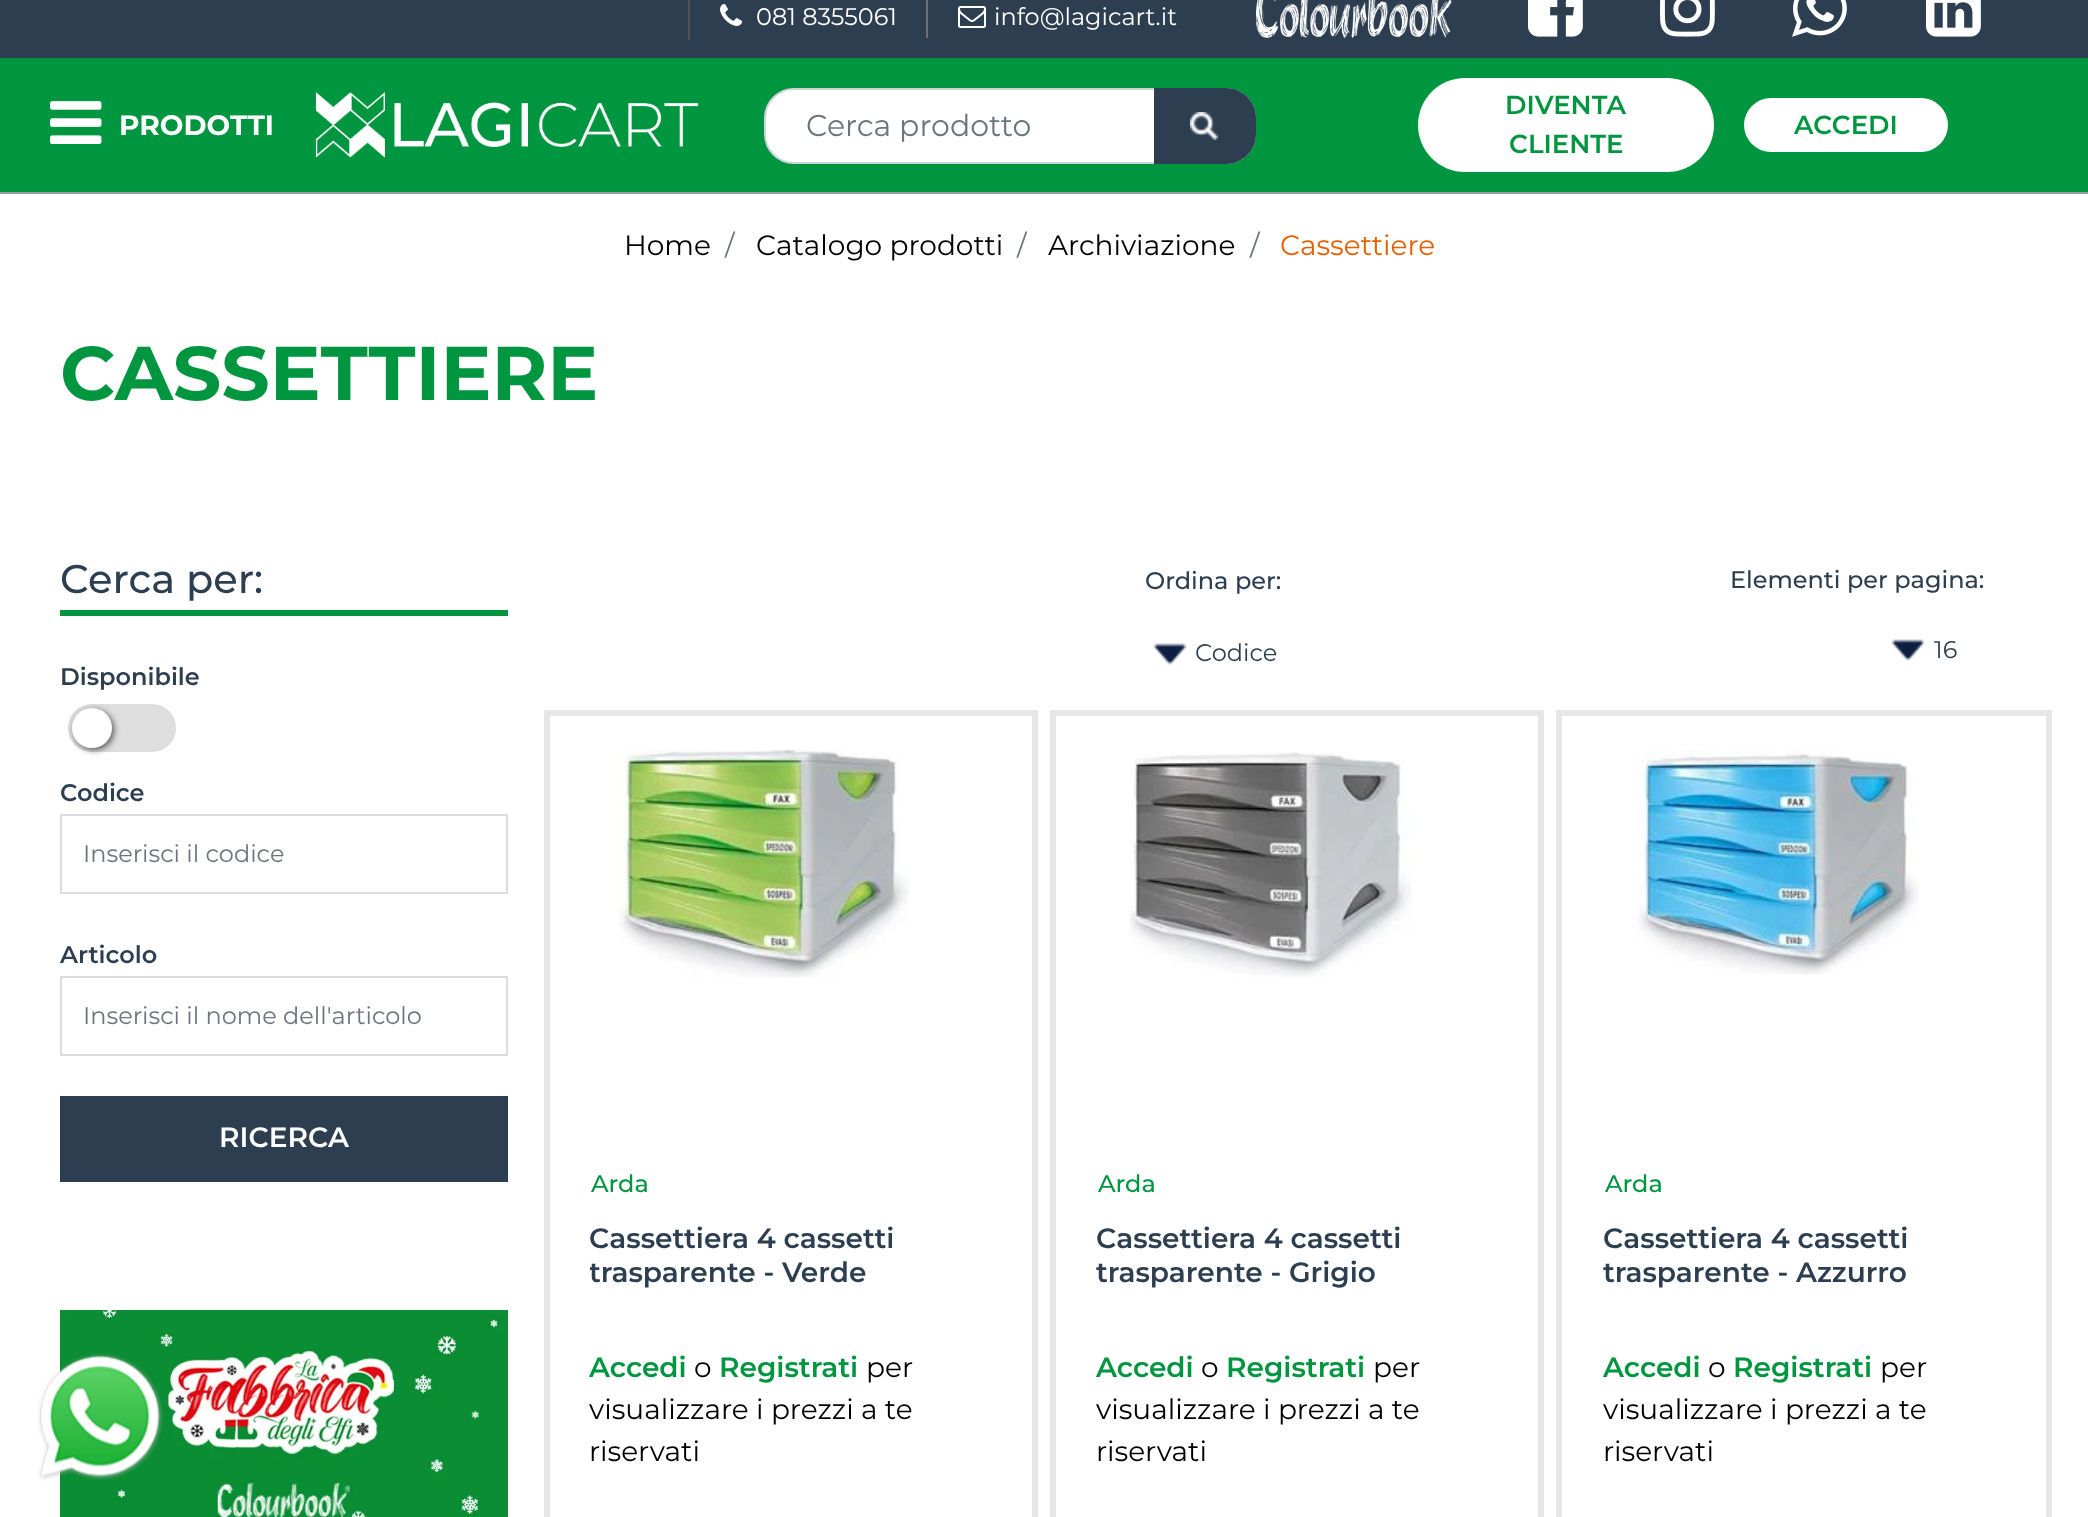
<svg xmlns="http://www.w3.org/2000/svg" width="2088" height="1517">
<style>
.a{font:24px Montserrat;fill:#fff}
.b{font:bold 28px Montserrat;fill:#fff}
.c{font:30px Montserrat;fill:#6c757d}
.d{font:600 26px Montserrat;fill:#009640}
.e{font:28px Montserrat;fill:#000}
.f{font:28px Montserrat;fill:#6c757d}
.g{font:28px Montserrat;fill:#e76000}
.h{font:bold 76px Montserrat;fill:#009640}
.i{font:500 40px Montserrat;fill:#2d3e50}
.j{font:600 24px Montserrat;fill:#2d3e50}
.k{font:24px Montserrat;fill:#6c757d}
.l{font:600 28px Montserrat;fill:#fff}
.m{font:500 24px Montserrat;fill:#2d3e50}
.n{font:24px Montserrat;fill:#2d3e50}
.o{font:500 24px Montserrat;fill:#009640}
.p{font:600 28px Montserrat;fill:#2d3e50}
.q{font:600 28px Montserrat;fill:#009640}
</style>
<defs>
<clipPath id="clip1"><path d="M590 1222h402v80H590z"/></clipPath>
</defs>
<rect width="100%" height="100%" fill="#fff"/>
<path fill="#2d3e50" d="M0 0h2088v58H0z"/>
<path fill="#525252" d="M688 0h2v40H688z"/>
<image href="1.png" x="720" y="4" width="22" height="22"/>
<path fill="#707070" d="M926 0h2v38H926z"/>
<image href="2.png" x="958" y="6" width="28" height="22"/>
<image href="3.png" x="1256" y="0" width="196" height="38"/>
<image href="4.png" x="1528" y="0" width="55" height="37"/>
<image href="5.png" x="1660" y="0" width="55" height="37"/>
<image href="6.png" x="1792" y="0" width="55" height="37"/>
<image href="7.png" x="1926" y="0" width="55" height="37"/>
<path fill="#009640" d="M0 58h2088v134H0z"/>
<path fill="#9b9f9e" d="M0 192h2088v2H0z"/>
<image href="8.png" x="50" y="101" width="52" height="43"/>
<image href="9.png" x="315" y="92" width="384" height="66"/>
<rect fill="#fff" stroke="#ced4da" stroke-width="2" x="765" y="89" width="490" height="74" rx="29"/>
<path fill="#2d3e50" d="M1154 88h72c16.5 0 30 13.5 30 30v16c0 16.5-13.5 30-30 30h-72z"/>
<image href="10.png" x="1190" y="112" width="28" height="28"/>
<rect fill="#fff" x="1418" y="78" width="296" height="94" rx="47"/>
<rect fill="#fff" x="1744" y="98" width="204" height="54" rx="27"/>
<path fill="#009640" d="M60 610h448v6H60z"/>
<rect fill="#dfdede" x="68" y="704" width="108" height="48" rx="24"/>
<rect fill="#00000099" filter="blur(3px)" x="74" y="710" width="40" height="40" rx="20"/>
<circle fill="#fff" cx="92" cy="728" r="20"/>
<path fill="none" stroke="#dcdcdc" stroke-width="2" d="M61 815h446v78H61z"/>
<path fill="none" stroke="#dcdcdc" stroke-width="2" d="M61 977h446v78H61z"/>
<path fill="#2d3e50" d="M60 1096h448v86H60z"/>
<image href="11.png" x="60" y="1310" width="448" height="207"/>
<image href="12.png" x="1153" y="643" width="34" height="22"/>
<image href="12.png" x="1891" y="639" width="34" height="22"/>
<path fill="none" stroke="#e7e7e7" stroke-width="6" d="M547 713h488v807H547z"/>
<image href="13.png" x="616" y="749" width="293" height="229"/>
<path fill="none" stroke="#e7e7e7" stroke-width="6" d="M1053 713h488v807H1053z"/>
<image href="14.png" x="1129" y="752" width="284" height="226"/>
<path fill="none" stroke="#e7e7e7" stroke-width="6" d="M1559 713h490v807H1559z"/>
<image href="15.png" x="1637" y="750" width="282" height="225"/>
<image href="16.png" x="37" y="1353" width="127" height="128"/>
<text class="a" x="756" y="25">081 8355061</text>
<text class="a" x="994" y="25">info@lagicart.it</text>
<text class="b" x="119" y="135">PRODOTTI</text>
<text class="c" x="806" y="136">Cerca prodotto</text>
<text class="d" x="1505" y="114">DIVENTA</text>
<text class="d" x="1509" y="153">CLIENTE</text>
<text class="d" x="1794" y="134">ACCEDI</text>
<text class="e" x="624" y="255">Home</text>
<text class="f" x="725" y="255">/</text>
<text class="e" x="756" y="255">Catalogo prodotti</text>
<text class="f" x="1017" y="255">/</text>
<text class="e" x="1048" y="255">Archiviazione</text>
<text class="f" x="1250" y="255">/</text>
<text class="g" x="1280" y="255">Cassettiere</text>
<text class="h" x="60" y="400">CASSETTIERE</text>
<text class="i" x="60" y="593">Cerca per:</text>
<text class="j" x="60" y="685">Disponibile</text>
<text class="j" x="60" y="801">Codice</text>
<text class="k" x="83" y="862">Inserisci il codice</text>
<text class="j" x="60" y="963">Articolo</text>
<text class="k" x="83" y="1024">Inserisci il nome dell'articolo</text>
<text class="l" x="219" y="1147">RICERCA</text>
<text class="m" x="1145" y="589">Ordina per:</text>
<text class="n" x="1195" y="661">Codice</text>
<text class="m" x="1730" y="588">Elementi per pagina:</text>
<text class="n" x="1934" y="658">16</text>
<text class="o" x="591" y="1192">Arda</text>
<text class="p" x="589" y="1248">Cassettiera 4 cassetti</text>
<g clip-path="url(#clip1)">
<text class="p" x="589" y="1282">trasparente - Verde</text>
</g>
<text class="q" x="589" y="1377">Accedi</text>
<text class="e" x="694" y="1377">o</text>
<text class="q" x="719" y="1377">Registrati</text>
<text class="e" x="866" y="1377">per</text>
<text class="e" x="589" y="1419">visualizzare i prezzi a te</text>
<text class="e" x="589" y="1461">riservati</text>
<text class="o" x="1098" y="1192">Arda</text>
<text class="p" x="1096" y="1248">Cassettiera 4 cassetti</text>
<text class="p" x="1096" y="1282">trasparente - Grigio</text>
<text class="q" x="1096" y="1377">Accedi</text>
<text class="e" x="1201" y="1377">o</text>
<text class="q" x="1226" y="1377">Registrati</text>
<text class="e" x="1373" y="1377">per</text>
<text class="e" x="1096" y="1419">visualizzare i prezzi a te</text>
<text class="e" x="1096" y="1461">riservati</text>
<text class="o" x="1605" y="1192">Arda</text>
<text class="p" x="1603" y="1248">Cassettiera 4 cassetti</text>
<text class="p" x="1603" y="1282">trasparente - Azzurro</text>
<text class="q" x="1603" y="1377">Accedi</text>
<text class="e" x="1708" y="1377">o</text>
<text class="q" x="1733" y="1377">Registrati</text>
<text class="e" x="1880" y="1377">per</text>
<text class="e" x="1603" y="1419">visualizzare i prezzi a te</text>
<text class="e" x="1603" y="1461">riservati</text>
</svg>
